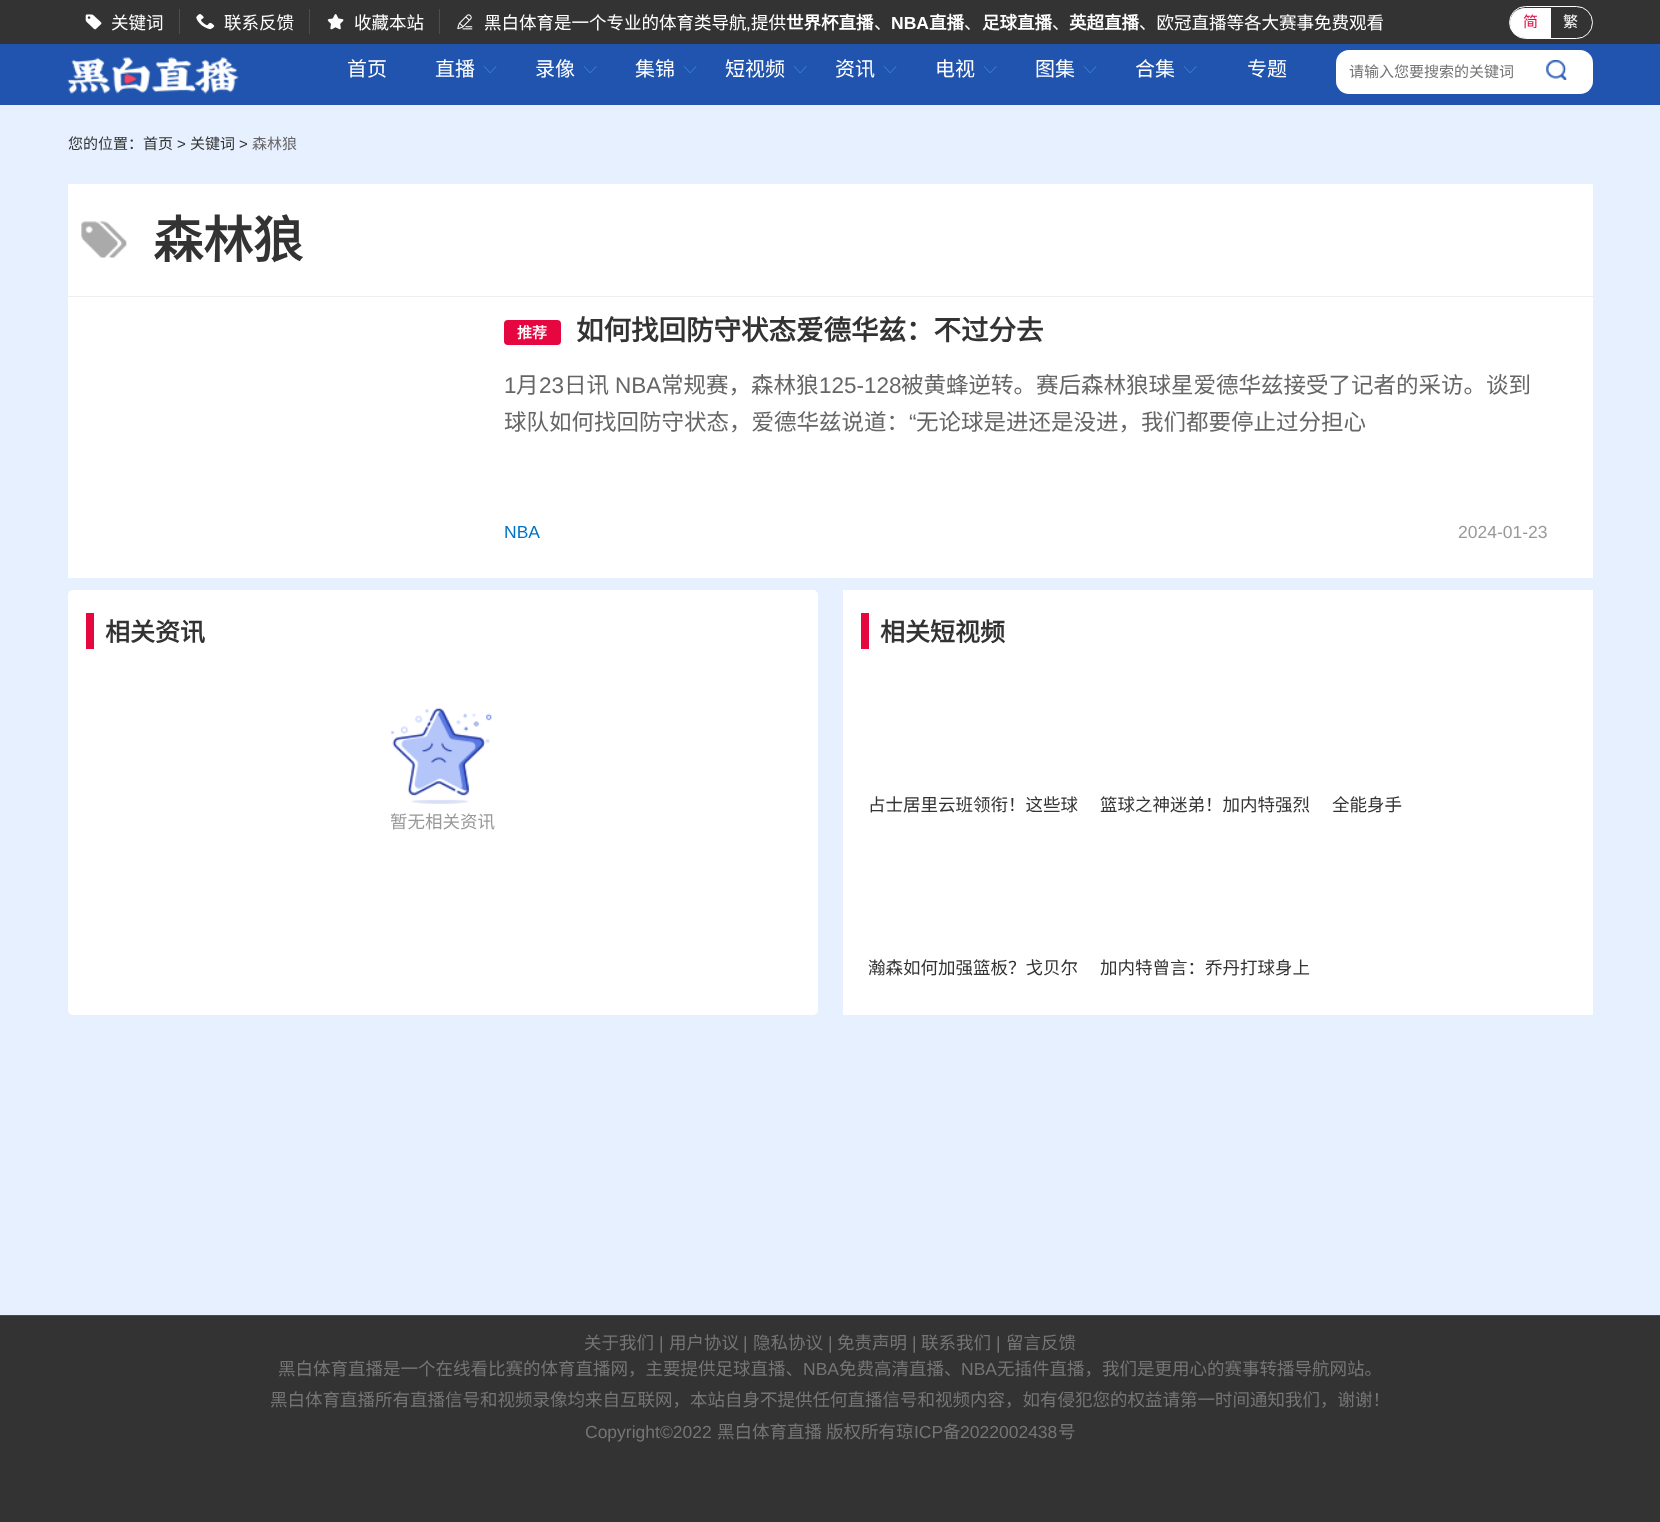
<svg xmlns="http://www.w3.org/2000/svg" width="1660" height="1522">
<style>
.a{font:17.5px Noto Sans CJK SC;fill:#fff}
.b{font:17.5px Liberation Sans;fill:#fff}
.c{font:bold 17.5px Noto Sans CJK SC;fill:#fff}
.d{font:bold 17.5px Liberation Sans;fill:#fff}
.e{font:15px Noto Sans CJK SC;fill:#e60640}
.f{font:15px Noto Sans CJK SC;fill:#fff}
.g{font:20px Noto Sans CJK SC;fill:#fff}
.h{font:15px Noto Sans CJK SC;fill:#757575}
.i{font:15px Noto Sans CJK SC;fill:#333}
.j{font:15px Liberation Sans;fill:#333}
.k{font:15px Noto Sans CJK SC;fill:#666}
.l{font:bold 50px Noto Sans CJK SC;fill:#333}
.m{font:bold 15px Noto Sans CJK SC;fill:#fff}
.n{font:bold 27.5px Noto Sans CJK SC;fill:#333}
.o{font:22.5px Liberation Sans;fill:#666}
.p{font:22.5px Noto Sans CJK SC;fill:#666}
.q{font:17.5px Liberation Sans;fill:#0073c4}
.r{font:17.5px Liberation Sans;fill:#999}
.s{font:bold 25px Noto Sans CJK SC;fill:#333}
.t{font:17.5px Noto Sans CJK SC;fill:#999}
.u{font:17.5px Noto Sans CJK SC;fill:#333}
.v{font:17.5px Noto Sans CJK SC;fill:#757575}
.w{font:17.5px Liberation Sans;fill:#757575}
</style>
<rect width="100%" height="100%" fill="#e7f0fe"/>
<path fill="#333" d="M0 0h1660v44H0z"/>
<path fill="#4d4d4d" d="M179 9h1v25H179z"/>
<image href="1.png" x="85" y="14" width="17" height="16"/>
<path fill="#4d4d4d" d="M309 9h1v25H309z"/>
<image href="2.png" x="196" y="14" width="19" height="16"/>
<path fill="#4d4d4d" d="M439 9h1v25H439z"/>
<image href="3.png" x="327" y="14" width="17" height="16"/>
<image href="4.png" x="457" y="14" width="16" height="16"/>
<rect fill="none" stroke="#fff" x="1509.5" y="6.5" width="83" height="32" rx="16"/>
<path fill="#fff" d="M1525 8h26v30h-26c-8.5 0-15-6.5-15-15c0-8.5 6.5-15 15-15z"/>
<path fill="#2054ae" d="M0 44h1660v61H0z"/>
<image href="5.png" x="67" y="57" width="172" height="37"/>
<image href="6.png" x="483" y="66" width="14" height="7"/>
<image href="6.png" x="583" y="66" width="14" height="7"/>
<image href="6.png" x="683" y="66" width="14" height="7"/>
<image href="6.png" x="793" y="66" width="14" height="7"/>
<image href="6.png" x="883" y="66" width="14" height="7"/>
<image href="6.png" x="983" y="66" width="14" height="7"/>
<image href="6.png" x="1083" y="66" width="14" height="7"/>
<image href="6.png" x="1183" y="66" width="14" height="7"/>
<rect fill="#fff" x="1336" y="50" width="257" height="44" rx="13"/>
<image href="7.png" x="1546" y="60" width="21" height="20"/>
<path fill="#fff" d="M68 184h1525v394H68z"/>
<path fill="#eee" d="M68 296h1525v1H68z"/>
<image href="8.png" x="81" y="221" width="46" height="37"/>
<rect fill="#e60640" x="504" y="320" width="57" height="25" rx="4"/>
<rect fill="#fff" x="68" y="590" width="750" height="425" rx="5"/>
<path fill="#e60640" d="M86 613h8v36H86z"/>
<image href="9.png" x="391" y="708" width="101" height="96"/>
<path fill="#fff" d="M843 590h750v425H843z"/>
<path fill="#e60640" d="M861 613h8v36H861z"/>
<path fill="#333" d="M0 1316h1660v206H0z"/>
<path fill="#4a4949" d="M0 1315h1660v1H0z"/>
<text class="a" x="111" y="29">关键词</text>
<text class="a" x="224" y="29">联系反馈</text>
<text class="a" x="354" y="29">收藏本站</text>
<text class="a" x="484" y="29">黑白体育是一个专业的体育类导航</text>
<text class="b" x="746" y="29">,</text>
<text class="a" x="751" y="29">提供</text>
<text class="c" x="786" y="29">世界杯直播</text>
<text class="a" x="874" y="29">、</text>
<text class="d" x="891" y="29">NBA</text>
<text class="c" x="929" y="29">直播</text>
<text class="a" x="964" y="29">、</text>
<text class="c" x="982" y="29">足球直播</text>
<text class="a" x="1052" y="29">、</text>
<text class="c" x="1069" y="29">英超直播</text>
<text class="a" x="1139" y="29">、欧冠直播等各大赛事免费观看</text>
<text class="e" x="1523" y="27">简</text>
<text class="f" x="1563" y="27">繁</text>
<text class="g" x="347" y="76">首页</text>
<text class="g" x="435" y="76">直播</text>
<text class="g" x="535" y="76">录像</text>
<text class="g" x="635" y="76">集锦</text>
<text class="g" x="725" y="76">短视频</text>
<text class="g" x="835" y="76">资讯</text>
<text class="g" x="935" y="76">电视</text>
<text class="g" x="1035" y="76">图集</text>
<text class="g" x="1135" y="76">合集</text>
<text class="g" x="1247" y="76">专题</text>
<text class="h" x="1349" y="77">请输入您要搜索的关键词</text>
<text class="i" x="68" y="149">您的位置：首页</text>
<text class="j" x="177" y="149">&gt;</text>
<text class="i" x="190" y="149">关键词</text>
<text class="j" x="239" y="149">&gt;</text>
<text class="k" x="252" y="149">森林狼</text>
<text class="l" x="153" y="258">森林狼</text>
<text class="m" x="517" y="338">推荐</text>
<text class="n" x="576" y="340">如何找回防守状态爱德华兹：不过分去</text>
<text class="o" x="504" y="393">1</text>
<text class="p" x="516" y="393">月</text>
<text class="o" x="539" y="393">23</text>
<text class="p" x="564" y="393">日讯</text>
<text class="o" x="615" y="393">NBA</text>
<text class="p" x="661" y="393">常规赛，森林狼</text>
<text class="o" x="819" y="393">125-128</text>
<text class="p" x="901" y="393">被黄蜂逆转。赛后森林狼球星爱德华兹接受了记者的采访。谈到</text>
<text class="p" x="504" y="430">球队如何找回防守状态，爱德华兹说道：</text>
<text class="o" x="909" y="430">“</text>
<text class="p" x="916" y="430">无论球是进还是没进，我们都要停止过分担心</text>
<text class="q" x="504" y="538">NBA</text>
<text class="r" x="1458" y="538">2024-01-23</text>
<text class="s" x="105" y="641">相关资讯</text>
<text class="t" x="390" y="828">暂无相关资讯</text>
<text class="s" x="880" y="641">相关短视频</text>
<text class="u" x="868" y="811">占士居里云班领衔！这些球</text>
<text class="u" x="1100" y="811">篮球之神迷弟！加内特强烈</text>
<text class="u" x="1332" y="811">全能身手</text>
<text class="u" x="868" y="974">瀚森如何加强篮板？戈贝尔</text>
<text class="u" x="1100" y="974">加内特曾言：乔丹打球身上</text>
<text class="v" x="584" y="1349">关于我们</text>
<text class="w" x="659" y="1349">|</text>
<text class="v" x="669" y="1349">用户协议</text>
<text class="w" x="743" y="1349">|</text>
<text class="v" x="753" y="1349">隐私协议</text>
<text class="w" x="828" y="1349">|</text>
<text class="v" x="837" y="1349">免责声明</text>
<text class="w" x="912" y="1349">|</text>
<text class="v" x="921" y="1349">联系我们</text>
<text class="w" x="996" y="1349">|</text>
<text class="v" x="1006" y="1349">留言反馈</text>
<text class="v" x="278" y="1375">黑白体育直播是一个在线看比赛的体育直播网，主要提供足球直播、</text>
<text class="w" x="803" y="1375">NBA</text>
<text class="v" x="839" y="1375">免费高清直播、</text>
<text class="w" x="961" y="1375">NBA</text>
<text class="v" x="997" y="1375">无插件直播，我们是更用心的赛事转播导航网站。</text>
<text class="v" x="270" y="1406">黑白体育直播所有直播信号和视频录像均来自互联网，本站自身不提供任何直播信号和视频内容，如有侵犯您的权益请第一时间通知我们，谢谢！</text>
<text class="w" x="585" y="1438">Copyright©2022</text>
<text class="v" x="717" y="1438">黑白体育直播 版权所有</text>
<text class="v" x="896" y="1438">琼</text>
<text class="w" x="914" y="1438">ICP</text>
<text class="v" x="943" y="1438">备</text>
<text class="w" x="960" y="1438">2022002438</text>
<text class="v" x="1058" y="1438">号</text>
</svg>
